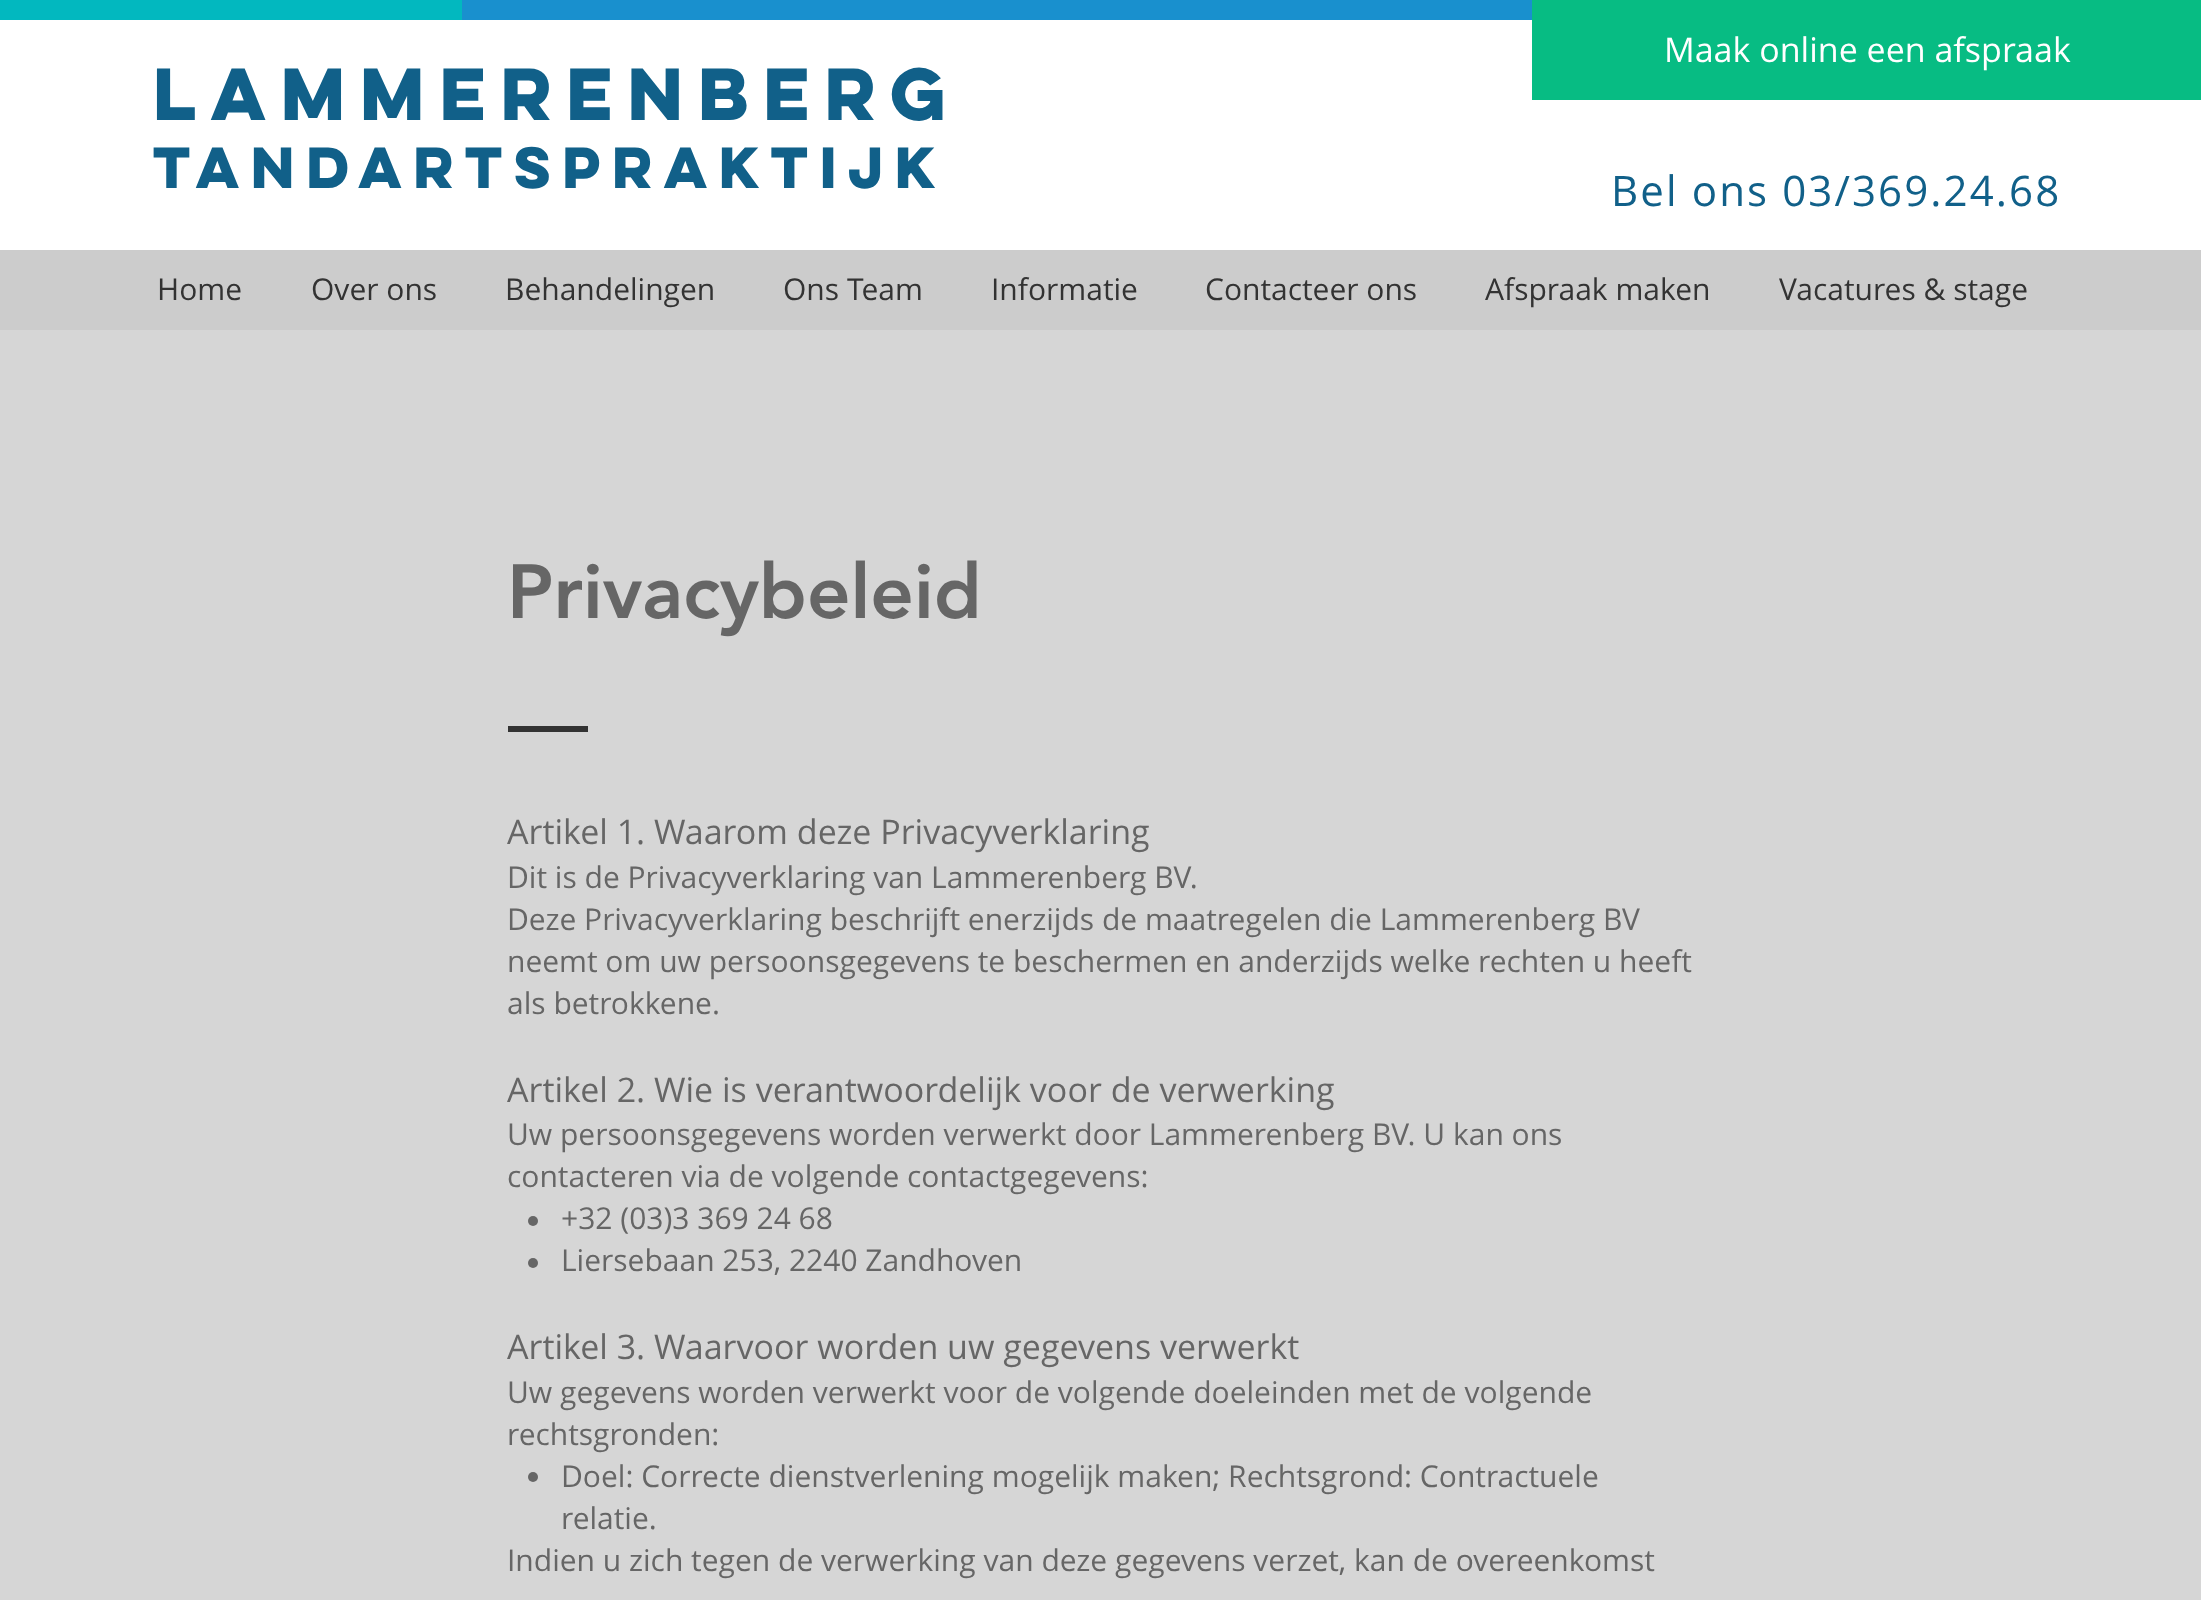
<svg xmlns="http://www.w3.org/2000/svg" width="2201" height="1600">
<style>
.a{font:34px Open Sans;fill:#fff}
.b{font:bold 66px 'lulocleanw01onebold';fill:#116089}
.c{font:bold 52px 'lulocleanw01onebold';fill:#116089}
.d{font:42px Open Sans;letter-spacing:2.1px;fill:#116089}
.e{font:30px Open Sans;fill:#333}
.f{font:900 76px 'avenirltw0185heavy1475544';fill:#666}
.g{font:34px Open Sans;fill:#666}
.h{font:30px Open Sans;fill:#666}
</style>
<rect width="100%" height="100%" fill="#fff"/>
<path fill="#07bc83" d="M1532 0h669v100H1532z"/>
<path fill="#02b8bf" d="M0 0h462v20H0z"/>
<path fill="#1990ce" d="M462 0h1070v20H462z"/>
<path fill="#ccc" d="M0 250h2201v80H0z"/>
<path fill="#d6d6d6" d="M0 330h2201v1270H0z"/>
<path fill="#333" d="M508 726h80v6H508z"/>
<circle fill="#666" cx="533" cy="1221" r="5"/>
<circle fill="#666" cx="533" cy="1263" r="5"/>
<circle fill="#666" cx="533" cy="1477" r="5"/>
<text class="a" x="1664" y="62">Maak online een afspraak</text>
<text class="b" x="153" y="120">Lammerenberg</text>
<text class="c" x="153" y="188">Tandartspraktijk</text>
<text class="d" x="1611" y="206">Bel ons 03/369.24.68</text>
<text class="e" x="157" y="300">Home</text>
<text class="e" x="311" y="300">Over ons</text>
<text class="e" x="505" y="300">Behandelingen</text>
<text class="e" x="783" y="300">Ons Team</text>
<text class="e" x="991" y="300">Informatie</text>
<text class="e" x="1205" y="300">Contacteer ons</text>
<text class="e" x="1485" y="300">Afspraak maken</text>
<text class="e" x="1779" y="300">Vacatures &amp; stage</text>
<text class="f" x="507" y="618">Privacybeleid</text>
<text class="g" x="507" y="844">Artikel 1. Waarom deze Privacyverklaring</text>
<text class="h" x="507" y="888">Dit is de Privacyverklaring van Lammerenberg BV.</text>
<text class="h" x="507" y="930">Deze Privacyverklaring beschrijft enerzijds de maatregelen die Lammerenberg BV</text>
<text class="h" x="507" y="972">neemt om uw persoonsgegevens te beschermen en anderzijds welke rechten u heeft</text>
<text class="h" x="507" y="1014">als betrokkene.</text>
<text class="g" x="507" y="1102">Artikel 2. Wie is verantwoordelijk voor de verwerking</text>
<text class="h" x="507" y="1145">Uw persoonsgegevens worden verwerkt door Lammerenberg BV. U kan ons</text>
<text class="h" x="507" y="1187">contacteren via de volgende contactgegevens:</text>
<text class="h" x="561" y="1229">+32 (03)3 369 24 68</text>
<text class="h" x="561" y="1271">Liersebaan 253, 2240 Zandhoven</text>
<text class="g" x="507" y="1359">Artikel 3. Waarvoor worden uw gegevens verwerkt</text>
<text class="h" x="507" y="1403">Uw gegevens worden verwerkt voor de volgende doeleinden met de volgende</text>
<text class="h" x="507" y="1445">rechtsgronden:</text>
<text class="h" x="561" y="1487">Doel: Correcte dienstverlening mogelijk maken; Rechtsgrond: Contractuele</text>
<text class="h" x="561" y="1529">relatie.</text>
<text class="h" x="507" y="1571">Indien u zich tegen de verwerking van deze gegevens verzet, kan de overeenkomst</text>
</svg>
